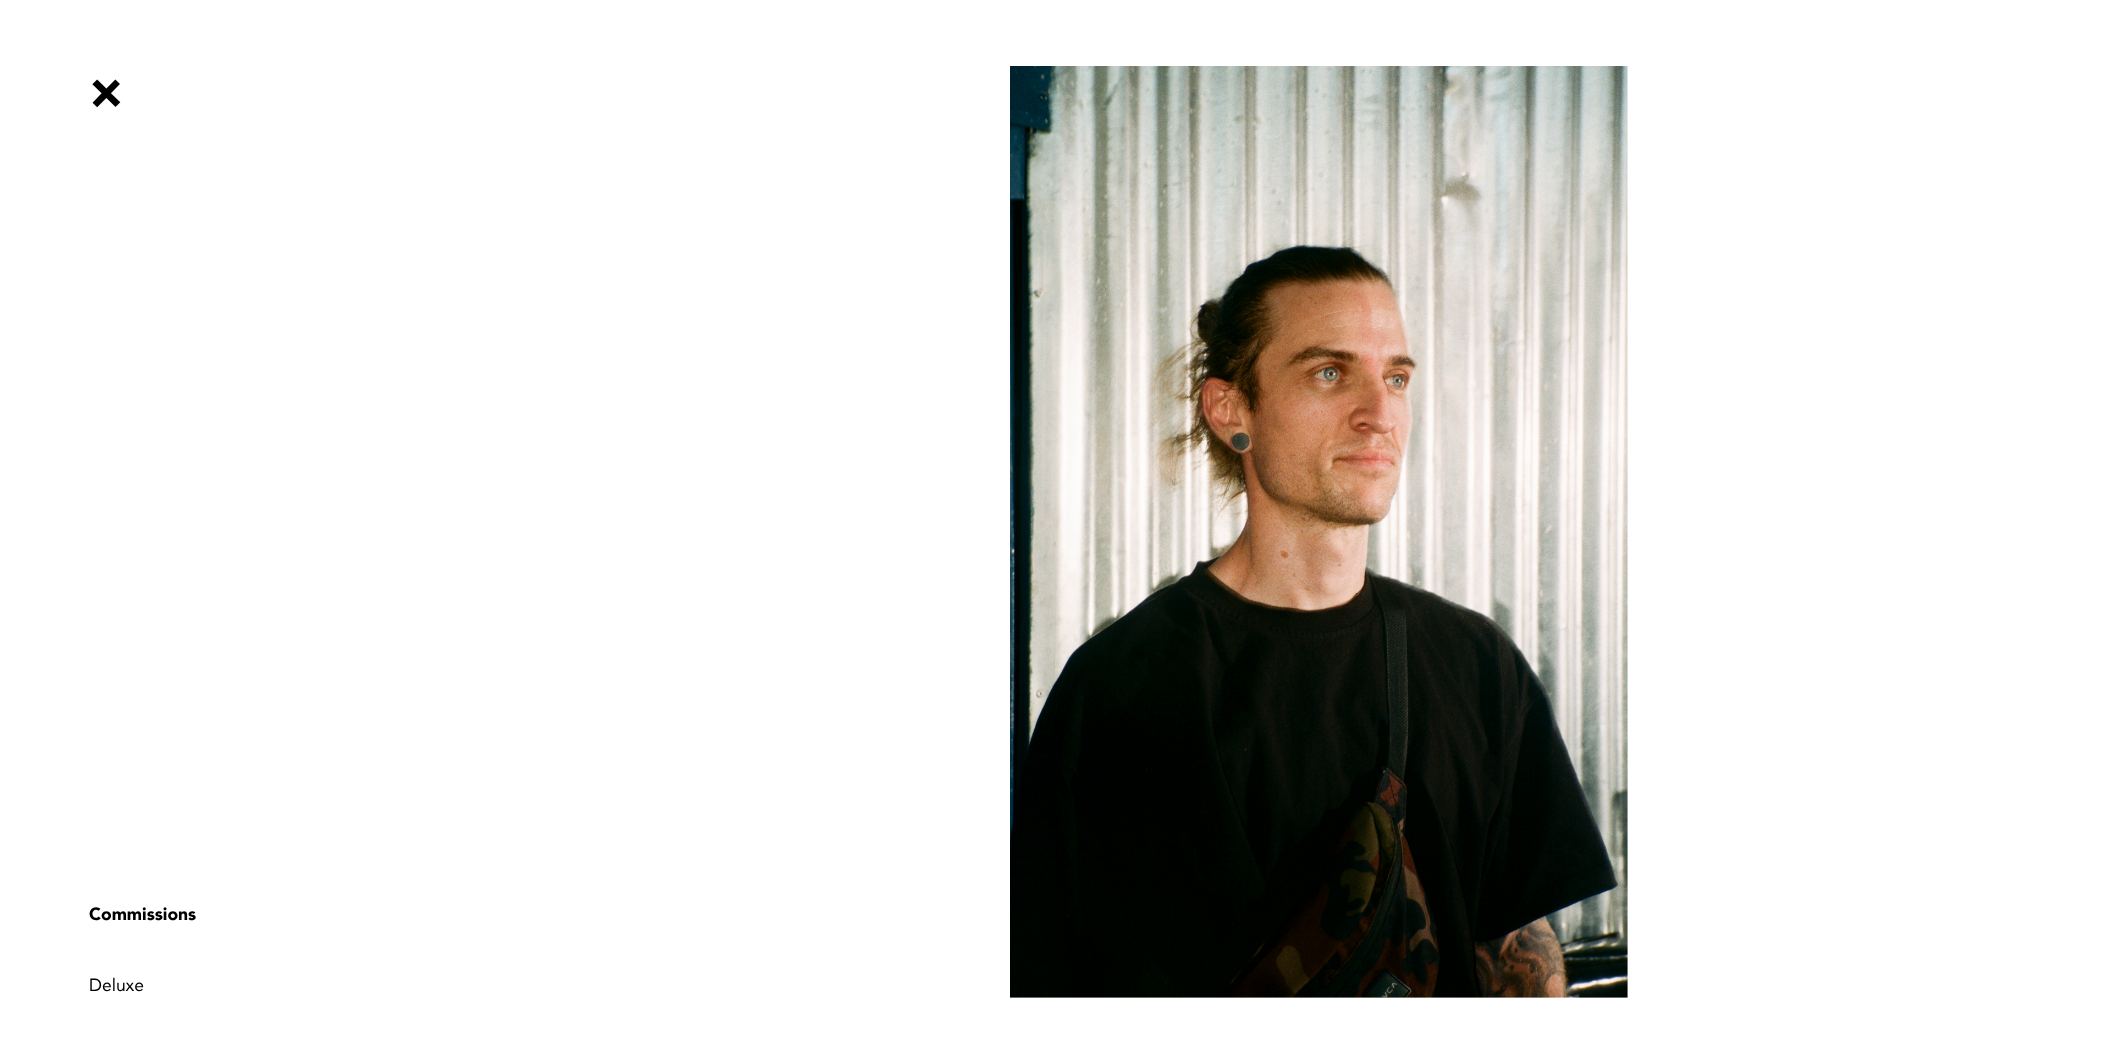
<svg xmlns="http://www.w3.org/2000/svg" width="2102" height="1063">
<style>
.a{font:900 52px Avenir;fill:#000}
.b{font:900 17.5px Avenir;fill:#000}
.c{font:17.5px Avenir;fill:#000}
</style>
<rect width="100%" height="100%" fill="#fff"/>
<image href="1.png" x="1010" y="66" width="618" height="932"/>
<text class="a" x="89" y="109">×</text>
<text class="b" x="89" y="920">Commissions</text>
<text class="c" x="89" y="991">Deluxe</text>
</svg>
